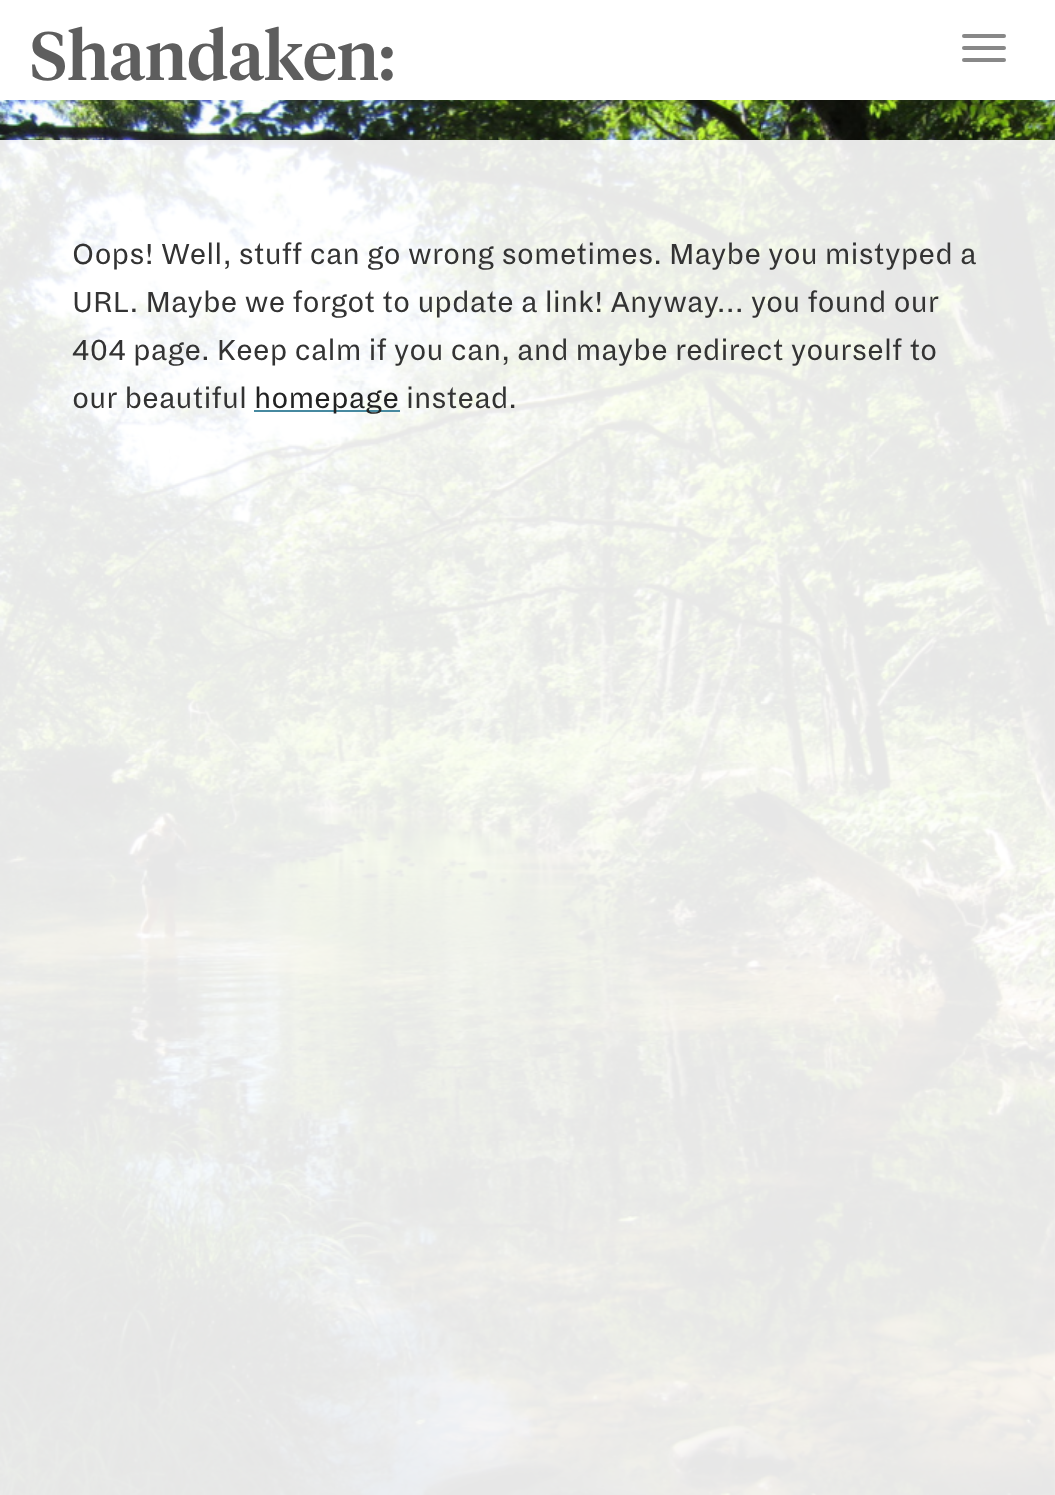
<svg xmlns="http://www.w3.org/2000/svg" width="1055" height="1495">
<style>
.a{font:500 68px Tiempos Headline;fill:#5e5e5e}
.b{font:32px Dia;fill:#333}
.c{font:32px Dia;fill:#222}
</style>
<rect width="100%" height="100%" fill="#fff"/>
<rect fill="#888" x="962" y="34" width="44" height="4" rx="2"/>
<rect fill="#888" x="962" y="46" width="44" height="4" rx="2"/>
<rect fill="#888" x="962" y="58" width="44" height="4" rx="2"/>
<image href="1.png" x="0" y="100" width="1055" height="1395"/>
<path fill="#4689a0" d="M254 410h146v2H254z"/>
<text class="a" x="30" y="80">Shandaken:</text>
<text class="b" x="72" y="264">Oops! Well, stuff can go wrong sometimes. Maybe you mistyped a</text>
<text class="b" x="72" y="312">URL. Maybe we forgot to update a link! Anyway… you found our</text>
<text class="b" x="72" y="360">404 page. Keep calm if you can, and maybe redirect yourself to</text>
<text class="b" x="72" y="408">our beautiful</text>
<text class="c" x="254" y="408">homepage</text>
<text class="b" x="406" y="408">instead.</text>
</svg>
